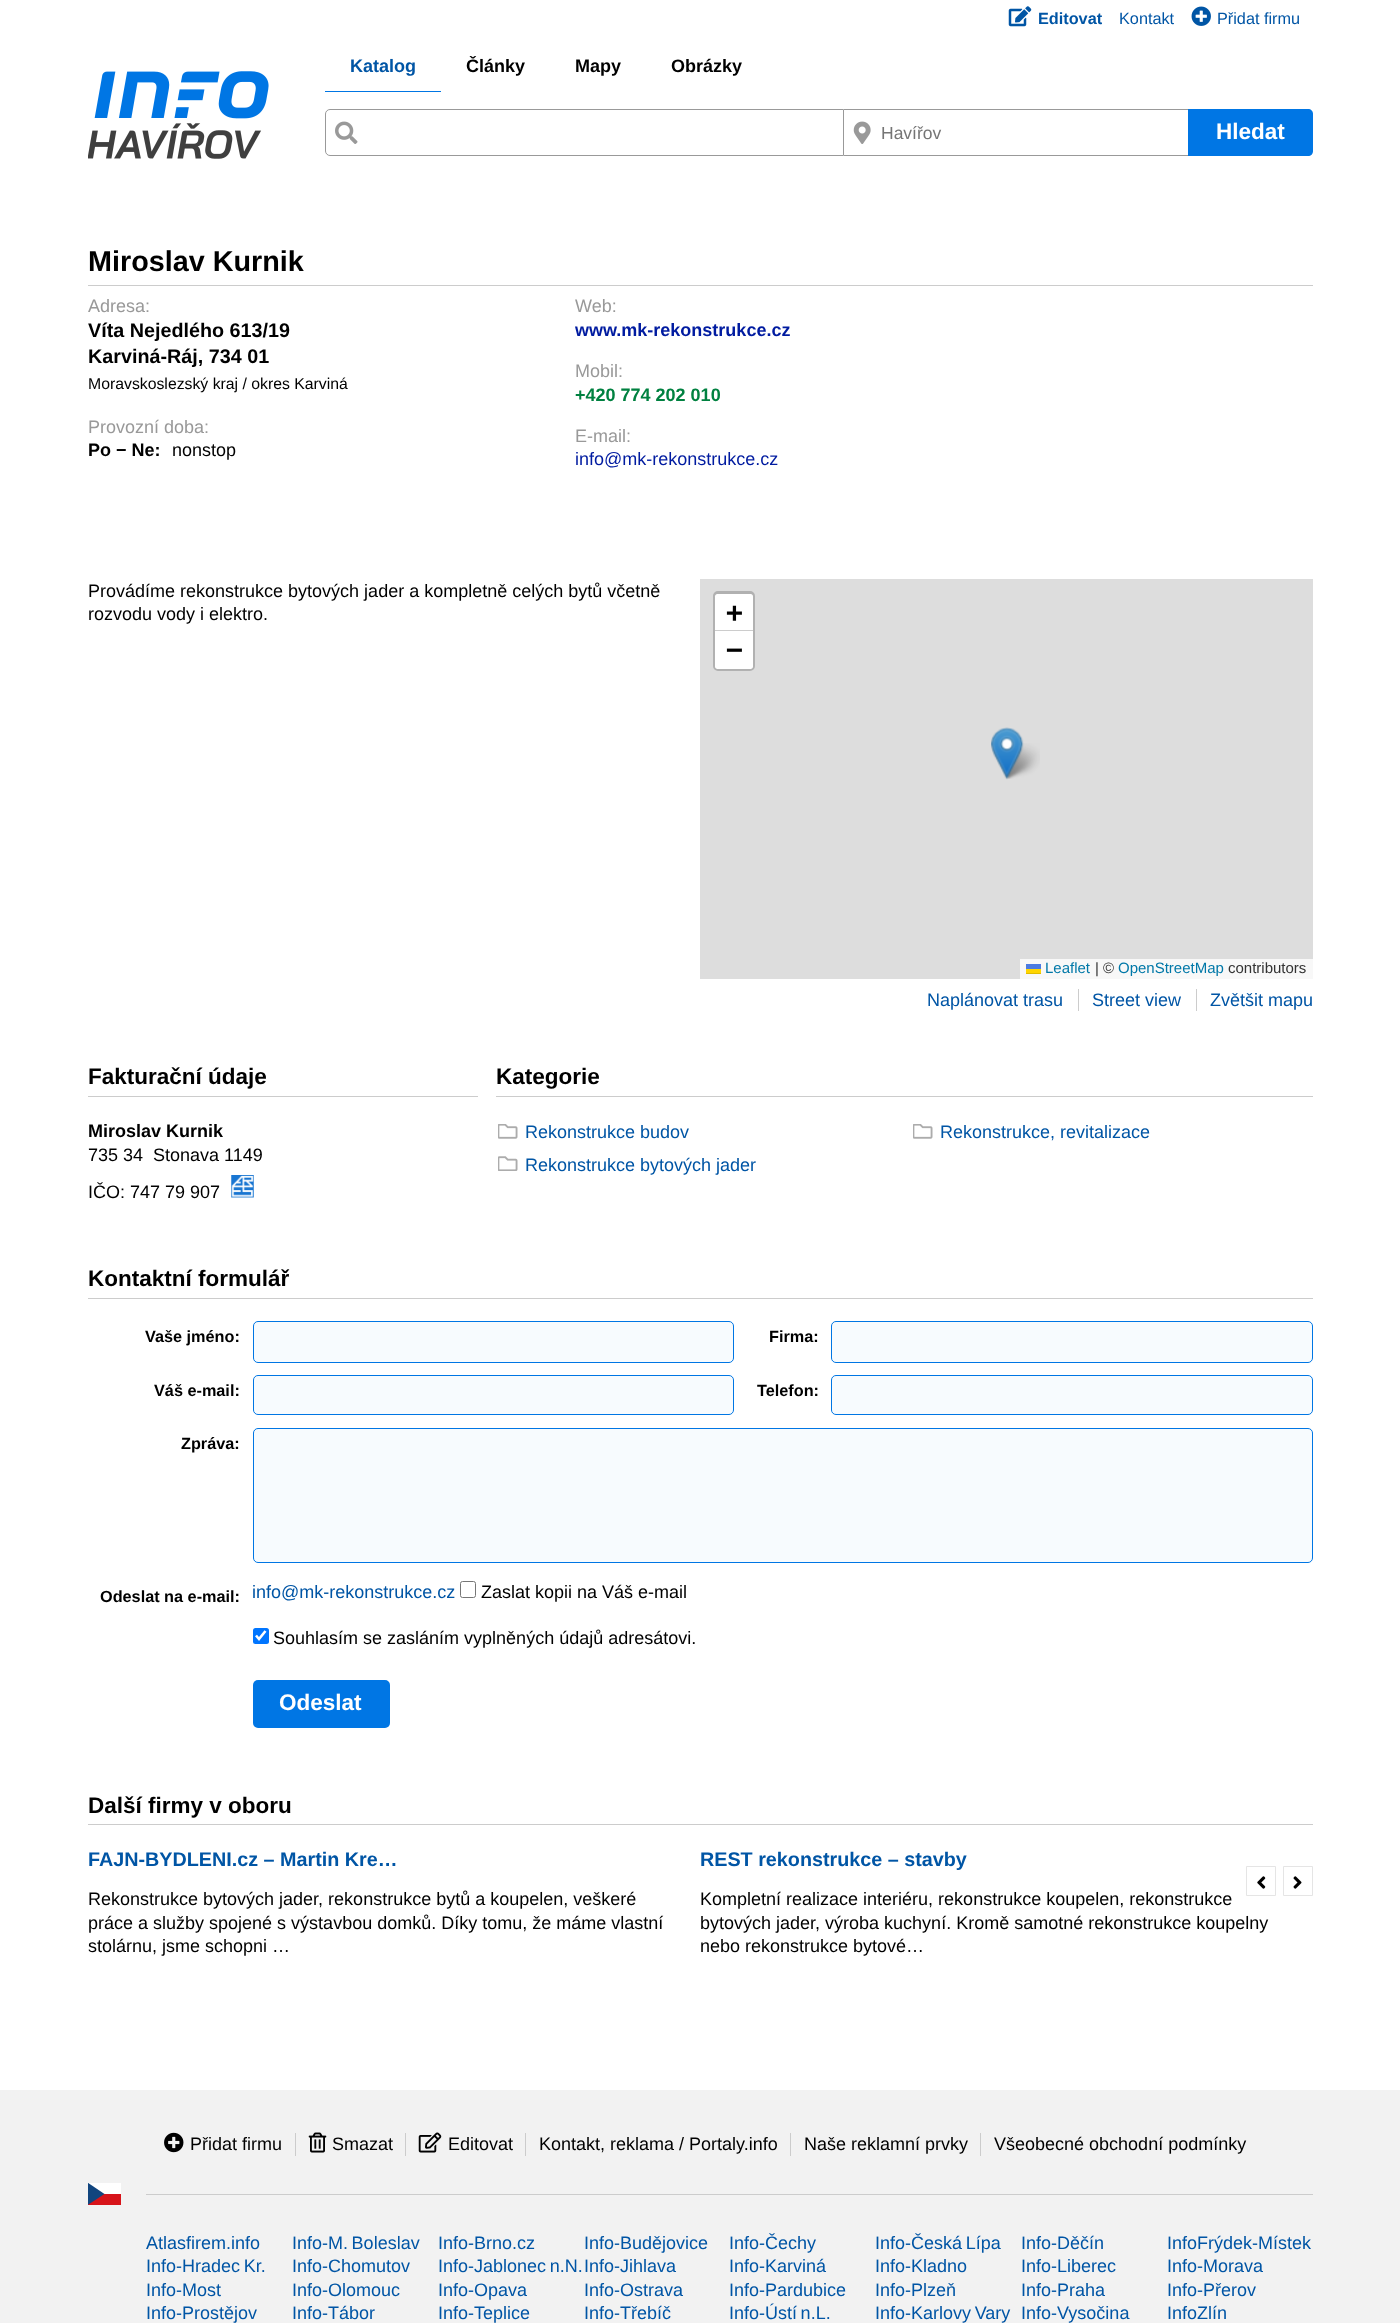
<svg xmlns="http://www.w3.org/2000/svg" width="1400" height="2323">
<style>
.a{font:bold 16.25px Liberation Sans;fill:#0055a5}
.b{font:16.25px Liberation Sans;fill:#0055a5}
.c{font:bold 18px Liberation Sans;fill:#0055a5}
.d{font:bold 18px Liberation Sans;fill:#000}
.e{font:17.5px Liberation Sans;fill:#757575}
.f{font:bold 22.5px Liberation Sans;fill:#fff}
.g{font:bold 28.75px Liberation Sans;fill:#000}
.h{font:18px Liberation Sans;fill:#999}
.i{font:bold 19.75px Liberation Sans;fill:#000}
.j{font:15.8px Liberation Sans;fill:#000}
.k{font:18px Liberation Sans;fill:#000}
.l{font:bold 18px Liberation Sans;fill:#001ba0}
.m{font:bold 18px Liberation Sans;fill:#008140}
.n{font:18px Liberation Sans;fill:#001ba0}
.o{font:bold 28px DejaVu Sans Mono;fill:#000}
.p{font:15px Liberation Sans;fill:#0078a8}
.q{font:15px Liberation Sans;fill:#333}
.r{font:18px Liberation Sans;fill:#0055a5}
.s{font:bold 22.5px Liberation Sans;fill:#000}
.t{font:bold 16.25px Liberation Sans;fill:#000}
.u{font:bold 19.75px Liberation Sans;fill:#0055a5}
</style>
<defs>
<clipPath id="clip1"><path d="M88 2183h33v22H88z"/></clipPath>
</defs>
<rect width="100%" height="100%" fill="#fff"/>
<image href="1.png" x="1008" y="6" width="24" height="21"/>
<image href="2.png" x="1191" y="6" width="20" height="20"/>
<image href="3.png" x="88" y="71" width="181" height="88"/>
<path fill="#0076e4" d="M325 91h116v1H325z"/>
<path fill="none" stroke="#999" d="M330 109.5h513.5v46h-513.5c-2.5 0-4.5-2-4.5-4.5v-37c0-2.5 2-4.5 4.5-4.5z"/>
<image href="4.png" x="335" y="121" width="23" height="23"/>
<image href="5.png" x="853" y="121" width="18" height="23"/>
<path fill="#999" d="M844 109h345v1H844z"/>
<path fill="#999" d="M844 155h345v1H844z"/>
<path fill="#0076e4" d="M1188 109h120c3 0 5 2 5 5v37c0 3-2 5-5 5h-120z"/>
<path fill="#ccc" d="M88 285h1225v1H88z"/>
<path fill="#ddd" d="M700 579h613v400H700z"/>
<rect fill="none" stroke="#b1b1b1" stroke-width="3" x="714.5" y="592.5" width="39" height="77" rx="3.5"/>
<path fill="#fff" d="M717.5 594h33c1.5 0 2.5 1 2.5 2.5v34.5h-38v-34.5c0-1.5 1-2.5 2.5-2.5z"/>
<path fill="#ccc" d="M715 630h38v1H715z"/>
<path fill="#fff" d="M715 631h38v35.5c0 1.5-1 2.5-2.5 2.5h-33c-1.5 0-2.5-1-2.5-2.5z"/>
<path fill="#f8f8f8" d="M1020 959h293v20H1020z"/>
<path fill="#4c7be1" d="M1026 964h15v5H1026z"/>
<path fill="#ffd500" d="M1026 969h15v4H1026z"/>
<path fill="#e0bc00" d="M1026 973h15v1H1026z"/>
<image href="7.png" x="1002" y="743" width="38" height="36"/>
<image href="6.png" x="991" y="727" width="33" height="53"/>
<path fill="#ccc" d="M1078 989h1v22H1078z"/>
<path fill="#ccc" d="M1196 989h1v22H1196z"/>
<path fill="#ccc" d="M88 1096h390v1H88z"/>
<image href="8.png" x="231" y="1175" width="23" height="23"/>
<path fill="#ccc" d="M496 1096h817v1H496z"/>
<image href="9.png" x="498" y="1124" width="20" height="15"/>
<image href="9.png" x="913" y="1124" width="20" height="15"/>
<image href="10.png" x="498" y="1156" width="20" height="15"/>
<path fill="#ccc" d="M88 1298h1225v1H88z"/>
<rect fill="#f7fbfe" stroke="#0076e4" x="253.5" y="1321.5" width="480" height="41" rx="4.5"/>
<rect fill="#f7fbfe" stroke="#0076e4" x="831.5" y="1321.5" width="481" height="41" rx="4.5"/>
<rect fill="#f7fbfe" stroke="#0076e4" x="253.5" y="1375.5" width="480" height="39" rx="4.5"/>
<rect fill="#f7fbfe" stroke="#0076e4" x="831.5" y="1375.5" width="481" height="39" rx="4.5"/>
<rect fill="#f7fbfe" stroke="#0076e4" x="253.5" y="1428.5" width="1059" height="134" rx="4.5"/>
<rect fill="none" stroke="#767676" x="460.5" y="1581.5" width="15" height="16" rx="2"/>
<rect fill="#0075ff" x="253" y="1628" width="16" height="16" rx="2.5"/>
<path fill="none" stroke="#fff" stroke-width="2.6" d="M256 1635.5l3 3.5l6.5-8"/>
<rect fill="#0076e4" x="253" y="1680" width="137" height="48" rx="5"/>
<path fill="#ccc" d="M88 1824h1225v1H88z"/>
<path fill="none" stroke="#e5e5e5" d="M1246.5 1866.5h29v29H1246.5z"/>
<image href="11.png" x="1257" y="1876" width="9" height="13"/>
<path fill="none" stroke="#e5e5e5" d="M1283.5 1866.5h29v29H1283.5z"/>
<image href="12.png" x="1293" y="1876" width="9" height="13"/>
<path fill="#f2f2f2" d="M0 2090h1400v233H0z"/>
<image href="13.png" x="164" y="2132" width="20" height="21"/>
<path fill="#ccc" d="M295 2133h1v23H295z"/>
<image href="14.png" x="308" y="2132" width="19" height="21"/>
<path fill="#ccc" d="M405 2133h1v23H405z"/>
<image href="15.png" x="418" y="2132" width="24" height="21"/>
<path fill="#ccc" d="M525 2133h1v23H525z"/>
<path fill="#ccc" d="M790 2133h1v23H790z"/>
<path fill="#ccc" d="M980 2133h1v23H980z"/>
<path fill="#d7141a" d="M88 2194h33v11H88z"/>
<path fill="#fff" d="M88 2183h33v11H88z"/>
<g clip-path="url(#clip1)">
<path fill="#11457e" d="M104.5 2194l-17-11.5v22.5z"/>
</g>
<path fill="#ccc" d="M146 2194h1167v1H146z"/>
<text class="a" x="1038" y="24">Editovat</text>
<text class="b" x="1119" y="24">Kontakt</text>
<text class="b" x="1217" y="24">Přidat firmu</text>
<text class="c" x="350" y="72">Katalog</text>
<text class="d" x="466" y="72">Články</text>
<text class="d" x="575" y="72">Mapy</text>
<text class="d" x="671" y="72">Obrázky</text>
<text class="e" x="881" y="139">Havířov</text>
<text class="f" x="1216" y="139">Hledat</text>
<text class="g" x="88" y="271">Miroslav Kurnik</text>
<text class="h" x="88" y="312">Adresa:</text>
<text class="i" x="88" y="337">Víta Nejedlého 613/19</text>
<text class="i" x="88" y="363">Karviná-Ráj, 734 01</text>
<text class="j" x="88" y="389">Moravskoslezský kraj / okres Karviná</text>
<text class="h" x="88" y="433">Provozní doba:</text>
<text class="d" x="88" y="456">Po − Ne:</text>
<text class="k" x="172" y="456">nonstop</text>
<text class="h" x="575" y="312">Web:</text>
<text class="l" x="575" y="336">www.mk-rekonstrukce.cz</text>
<text class="h" x="575" y="377">Mobil:</text>
<text class="m" x="575" y="401">+420 774 202 010</text>
<text class="h" x="575" y="442">E-mail:</text>
<text class="n" x="575" y="465">info@mk-rekonstrukce.cz</text>
<text class="k" x="88" y="597">Provádíme rekonstrukce bytových jader a kompletně celých bytů včetně</text>
<text class="k" x="88" y="620">rozvodu vody i elektro.</text>
<text class="o" x="726" y="622">+</text>
<text class="o" x="726" y="659">−</text>
<text class="p" x="1045" y="973">Leaflet</text>
<text class="q" x="1095" y="973">| ©</text>
<text class="p" x="1118" y="973">OpenStreetMap</text>
<text class="q" x="1228" y="973">contributors</text>
<text class="r" x="927" y="1006">Naplánovat trasu</text>
<text class="r" x="1092" y="1006">Street view</text>
<text class="r" x="1210" y="1006">Zvětšit mapu</text>
<text class="s" x="88" y="1084">Fakturační údaje</text>
<text class="d" x="88" y="1137">Miroslav Kurnik</text>
<text class="k" x="88" y="1161">735 34</text>
<text class="k" x="153" y="1161">Stonava 1149</text>
<text class="k" x="88" y="1198">IČO: 747 79 907</text>
<text class="s" x="496" y="1084">Kategorie</text>
<text class="r" x="525" y="1138">Rekonstrukce budov</text>
<text class="r" x="940" y="1138">Rekonstrukce, revitalizace</text>
<text class="r" x="525" y="1171">Rekonstrukce bytových jader</text>
<text class="s" x="88" y="1286">Kontaktní formulář</text>
<text class="t" x="145" y="1342">Vaše jméno:</text>
<text class="t" x="769" y="1342">Firma:</text>
<text class="t" x="154" y="1396">Váš e-mail:</text>
<text class="t" x="757" y="1396">Telefon:</text>
<text class="t" x="181" y="1449">Zpráva:</text>
<text class="t" x="100" y="1602">Odeslat na e-mail:</text>
<text class="r" x="252" y="1598">info@mk-rekonstrukce.cz</text>
<text class="k" x="481" y="1598">Zaslat kopii na Váš e-mail</text>
<text class="k" x="273" y="1644">Souhlasím se zasláním vyplněných údajů adresátovi.</text>
<text class="f" x="279" y="1710">Odeslat</text>
<text class="s" x="88" y="1813">Další firmy v oboru</text>
<text class="u" x="88" y="1866">FAJN-BYDLENI.cz – Martin Kre…</text>
<text class="k" x="88" y="1905">Rekonstrukce bytových jader, rekonstrukce bytů a koupelen, veškeré</text>
<text class="k" x="88" y="1929">práce a služby spojené s výstavbou domků. Díky tomu, že máme vlastní</text>
<text class="k" x="88" y="1952">stolárnu, jsme schopni …</text>
<text class="u" x="700" y="1866">REST rekonstrukce – stavby</text>
<text class="k" x="700" y="1905">Kompletní realizace interiéru, rekonstrukce koupelen, rekonstrukce</text>
<text class="k" x="700" y="1929">bytových jader, výroba kuchyní. Kromě samotné rekonstrukce koupelny</text>
<text class="k" x="700" y="1952">nebo rekonstrukce bytové…</text>
<text class="k" x="190" y="2150">Přidat firmu</text>
<text class="k" x="332" y="2150">Smazat</text>
<text class="k" x="448" y="2150">Editovat</text>
<text class="k" x="539" y="2150">Kontakt, reklama / Portaly.info</text>
<text class="k" x="804" y="2150">Naše reklamní prvky</text>
<text class="k" x="994" y="2150">Všeobecné obchodní podmínky</text>
<text class="r" x="146" y="2249">Atlasfirem.info</text>
<text class="r" x="292" y="2249">Info-M. Boleslav</text>
<text class="r" x="438" y="2249">Info-Brno.cz</text>
<text class="r" x="584" y="2249">Info-Budějovice</text>
<text class="r" x="729" y="2249">Info-Čechy</text>
<text class="r" x="875" y="2249">Info-Česká Lípa</text>
<text class="r" x="1021" y="2249">Info-Děčín</text>
<text class="r" x="1167" y="2249">InfoFrýdek-Místek</text>
<text class="r" x="146" y="2272">Info-Hradec Kr.</text>
<text class="r" x="292" y="2272">Info-Chomutov</text>
<text class="r" x="438" y="2272">Info-Jablonec n.N.</text>
<text class="r" x="584" y="2272">Info-Jihlava</text>
<text class="r" x="729" y="2272">Info-Karviná</text>
<text class="r" x="875" y="2272">Info-Kladno</text>
<text class="r" x="1021" y="2272">Info-Liberec</text>
<text class="r" x="1167" y="2272">Info-Morava</text>
<text class="r" x="146" y="2296">Info-Most</text>
<text class="r" x="292" y="2296">Info-Olomouc</text>
<text class="r" x="438" y="2296">Info-Opava</text>
<text class="r" x="584" y="2296">Info-Ostrava</text>
<text class="r" x="729" y="2296">Info-Pardubice</text>
<text class="r" x="875" y="2296">Info-Plzeň</text>
<text class="r" x="1021" y="2296">Info-Praha</text>
<text class="r" x="1167" y="2296">Info-Přerov</text>
<text class="r" x="146" y="2319">Info-Prostějov</text>
<text class="r" x="292" y="2319">Info-Tábor</text>
<text class="r" x="438" y="2319">Info-Teplice</text>
<text class="r" x="584" y="2319">Info-Třebíč</text>
<text class="r" x="729" y="2319">Info-Ústí n.L.</text>
<text class="r" x="875" y="2319">Info-Karlovy Vary</text>
<text class="r" x="1021" y="2319">Info-Vysočina</text>
<text class="r" x="1167" y="2319">InfoZlín</text>
</svg>
